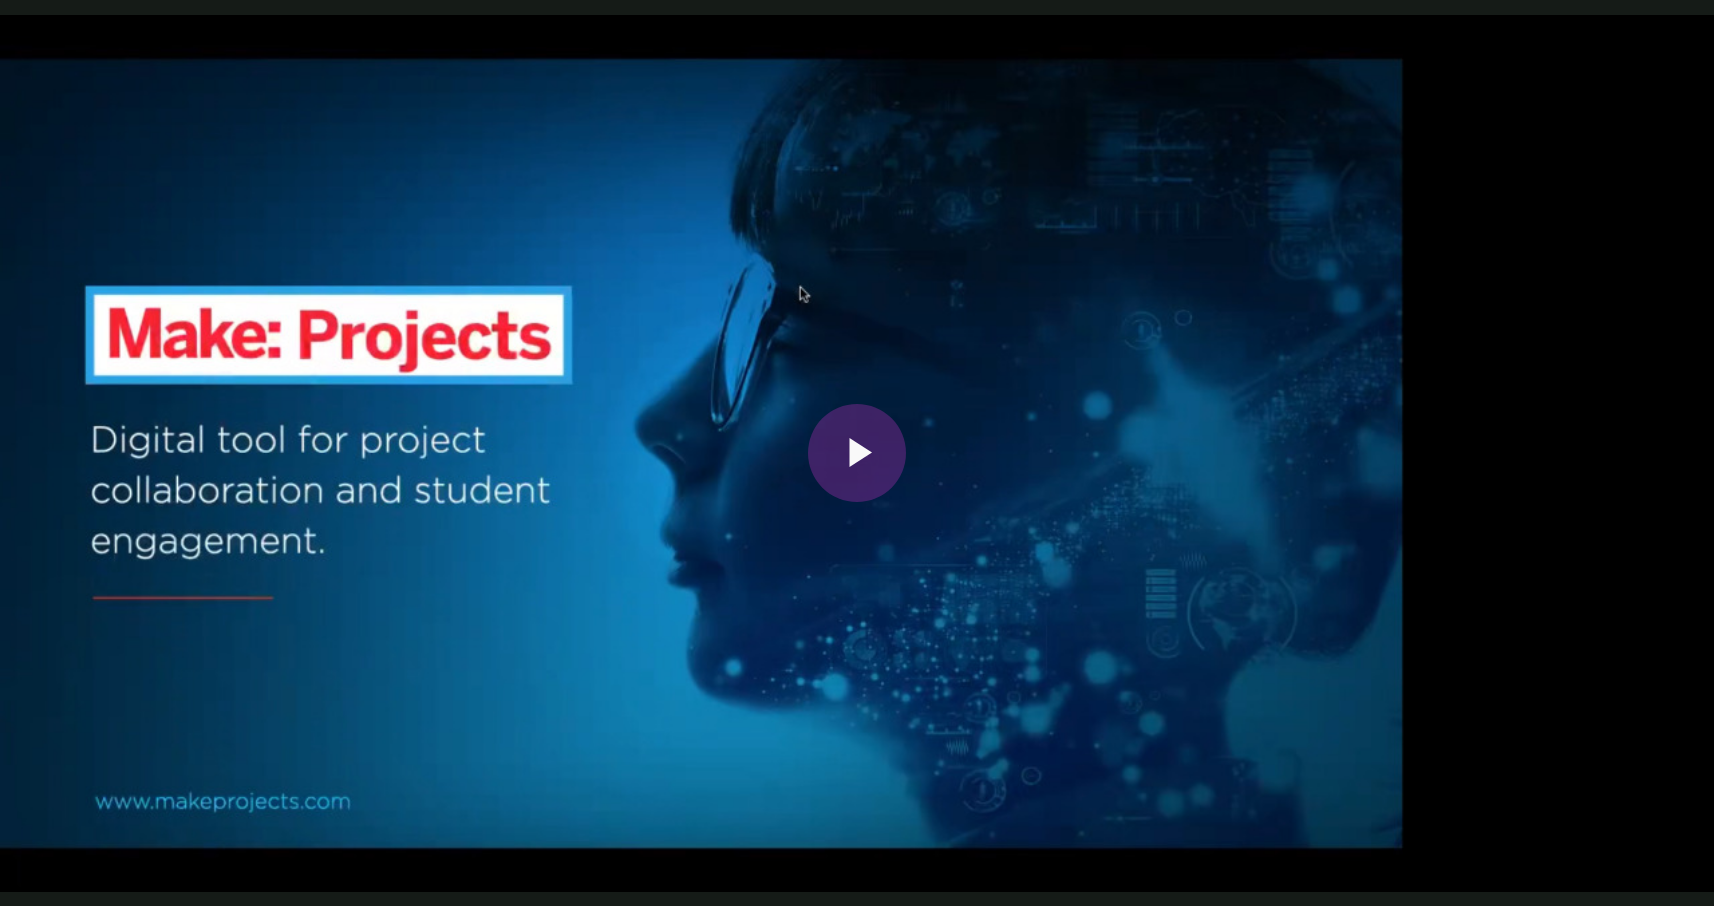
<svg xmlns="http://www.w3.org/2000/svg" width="1714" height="906">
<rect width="100%" height="100%" fill="#151b17"/>
<image href="1.png" x="0" y="15" width="1714" height="877"/>
<circle fill="#79298f80" cx="857" cy="453" r="49"/>
<path fill="#f9f9f9" d="M849.5 438v29l22.5-14.5z"/>
</svg>
